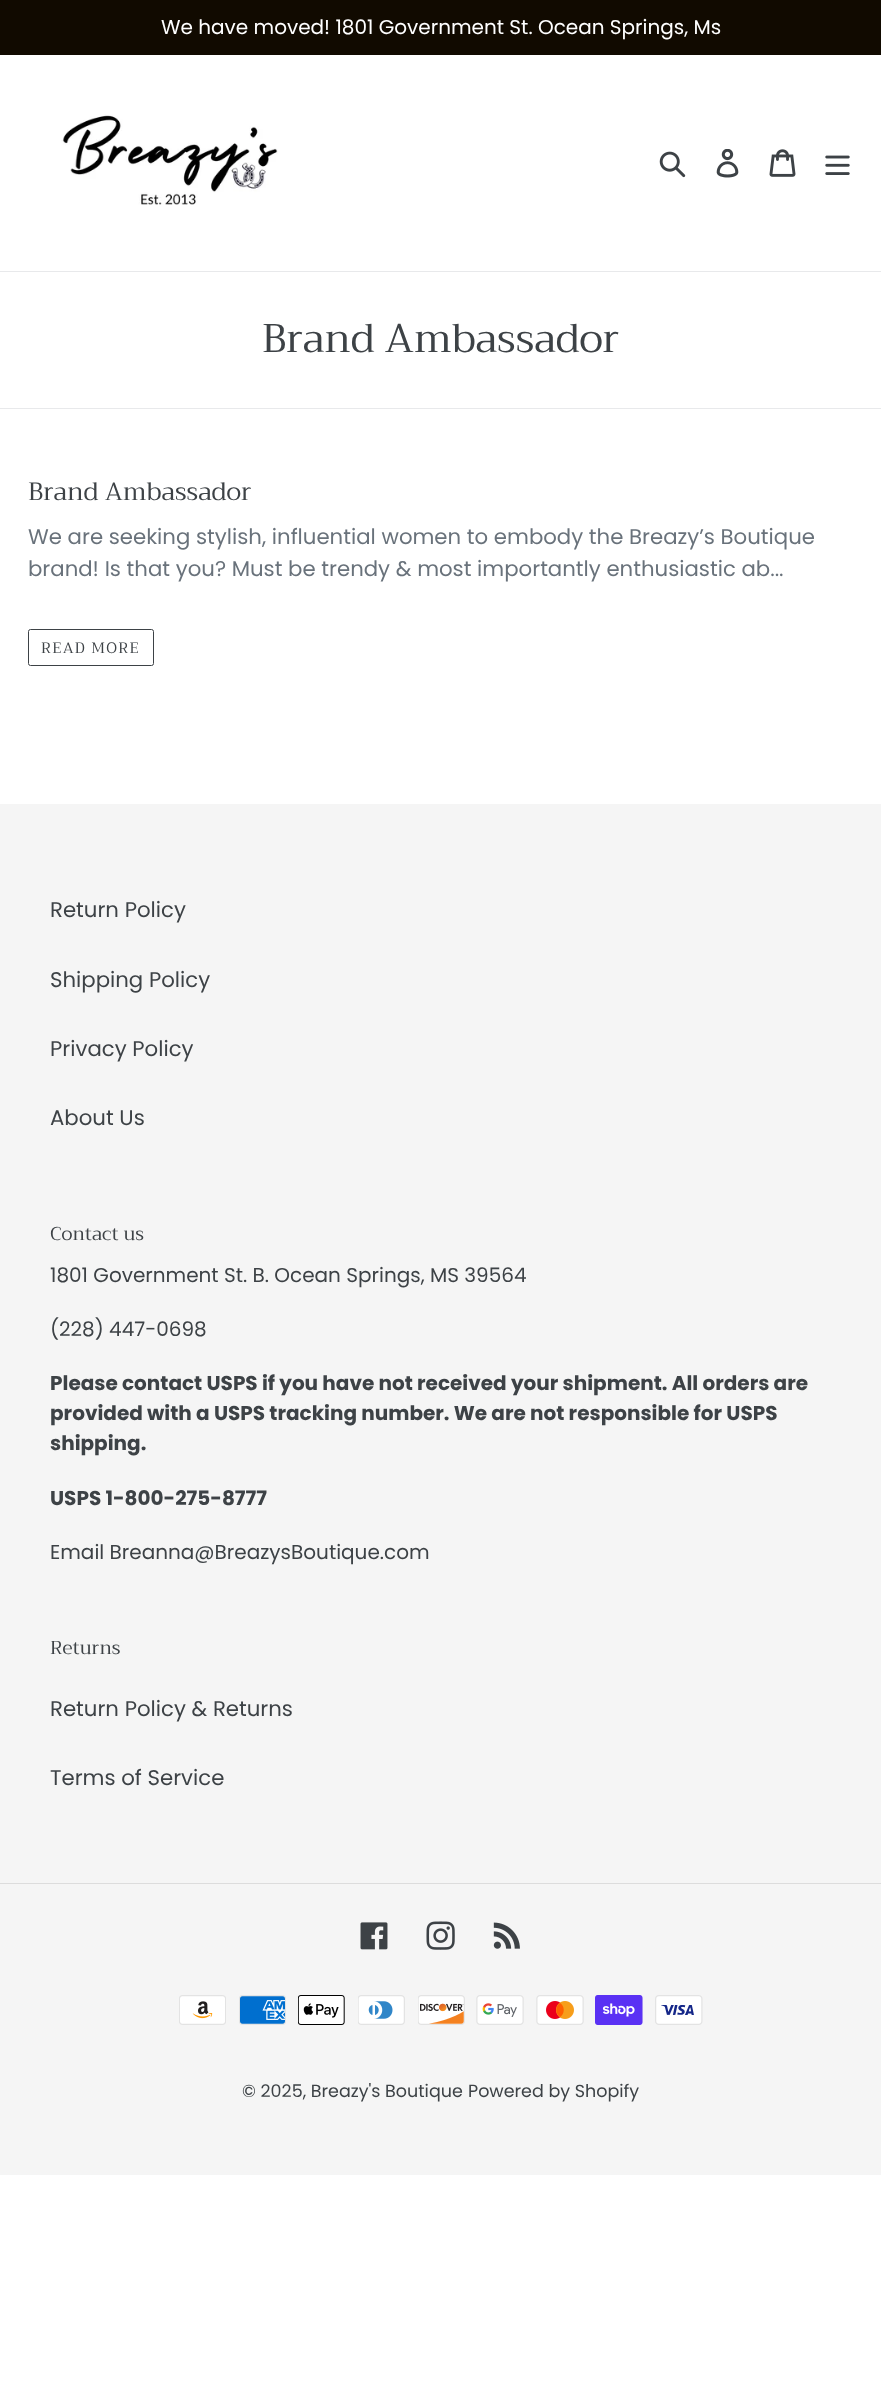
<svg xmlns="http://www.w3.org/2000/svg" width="881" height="2383">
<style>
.a{font:20px Poppins;fill:#fff}
.b{font:40px Trirong;fill:#3d4246}
.c{font:25px Trirong;fill:#3d4246}
.d{font:21.25px Poppins;fill:#69727b}
.e{font:15px Trirong;letter-spacing:1.25px;fill:#3d4246}
.f{font:21.25px Poppins;fill:#3d4246}
.g{font:18.75px Trirong;fill:#3d4246}
.h{font:20px Poppins;fill:#3d4246}
.i{font:bold 20px Poppins;fill:#3d4246}
.j{font:17.5px Poppins;fill:#3d4246}
</style>
<rect width="100%" height="100%" fill="#fff"/>
<path fill="#110a00" d="M0 0h881v55H0z"/>
<path fill="#e8e9eb" d="M0 271h881v1H0z"/>
<image href="1.png" x="61" y="114" width="217" height="91"/>
<image href="2.png" x="659" y="151" width="27" height="27"/>
<image href="3.png" x="716" y="149" width="23" height="29"/>
<image href="4.png" x="769" y="149" width="27" height="28"/>
<image href="5.png" x="825" y="155" width="25" height="20"/>
<path fill="#e8e9eb" d="M0 408h881v1H0z"/>
<rect fill="none" stroke="#3d4246" x="28.5" y="629.5" width="125" height="36" rx="2"/>
<path fill="#f5f5f5" d="M0 804h881v1371H0z"/>
<path fill="#dcdcdc" d="M0 1883h881v1H0z"/>
<image href="6.png" x="360" y="1922" width="28" height="28"/>
<image href="7.png" x="426" y="1921" width="29" height="29"/>
<image href="8.png" x="493" y="1922" width="27" height="27"/>
<image href="9.png" x="179" y="1995" width="47" height="30"/>
<image href="10.png" x="239" y="1995" width="47" height="30"/>
<image href="11.png" x="298" y="1995" width="47" height="30"/>
<image href="12.png" x="358" y="1995" width="47" height="30"/>
<image href="13.png" x="418" y="1995" width="47" height="30"/>
<image href="14.png" x="476" y="1995" width="48" height="30"/>
<image href="15.png" x="536" y="1995" width="48" height="30"/>
<image href="16.png" x="595" y="1995" width="48" height="30"/>
<image href="17.png" x="655" y="1995" width="48" height="30"/>
<text class="a" x="161" y="34">We have moved! 1801 Government St. Ocean Springs, Ms</text>
<text class="b" x="262" y="352">Brand Ambassador</text>
<text class="c" x="28" y="500">Brand Ambassador</text>
<text class="d" x="28" y="544">We are seeking stylish, influential women to embody the Breazy’s Boutique</text>
<text class="d" x="28" y="576">brand! Is that you? Must be trendy &amp; most importantly enthusiastic ab...</text>
<text class="e" x="41" y="653">READ MORE</text>
<text class="f" x="50" y="917">Return Policy</text>
<text class="f" x="50" y="987">Shipping Policy</text>
<text class="f" x="50" y="1056">Privacy Policy</text>
<text class="f" x="50" y="1125">About Us</text>
<text class="g" x="50" y="1240">Contact us</text>
<text class="h" x="50" y="1282">1801 Government St. B. Ocean Springs, MS 39564</text>
<text class="h" x="50" y="1336">(228) 447-0698</text>
<text class="i" x="50" y="1390">Please contact USPS if you have not received your shipment. All orders are</text>
<text class="i" x="50" y="1420">provided with a USPS tracking number. We are not responsible for USPS</text>
<text class="i" x="50" y="1450">shipping.</text>
<text class="i" x="50" y="1505">USPS 1-800-275-8777</text>
<text class="h" x="50" y="1559">Email Breanna@BreazysBoutique.com</text>
<text class="g" x="50" y="1654">Returns</text>
<text class="f" x="50" y="1716">Return Policy &amp; Returns</text>
<text class="f" x="50" y="1785">Terms of Service</text>
<text class="j" x="242" y="2097">© 2025, Breazy's Boutique</text>
<text class="j" x="468" y="2097">Powered by Shopify</text>
</svg>
